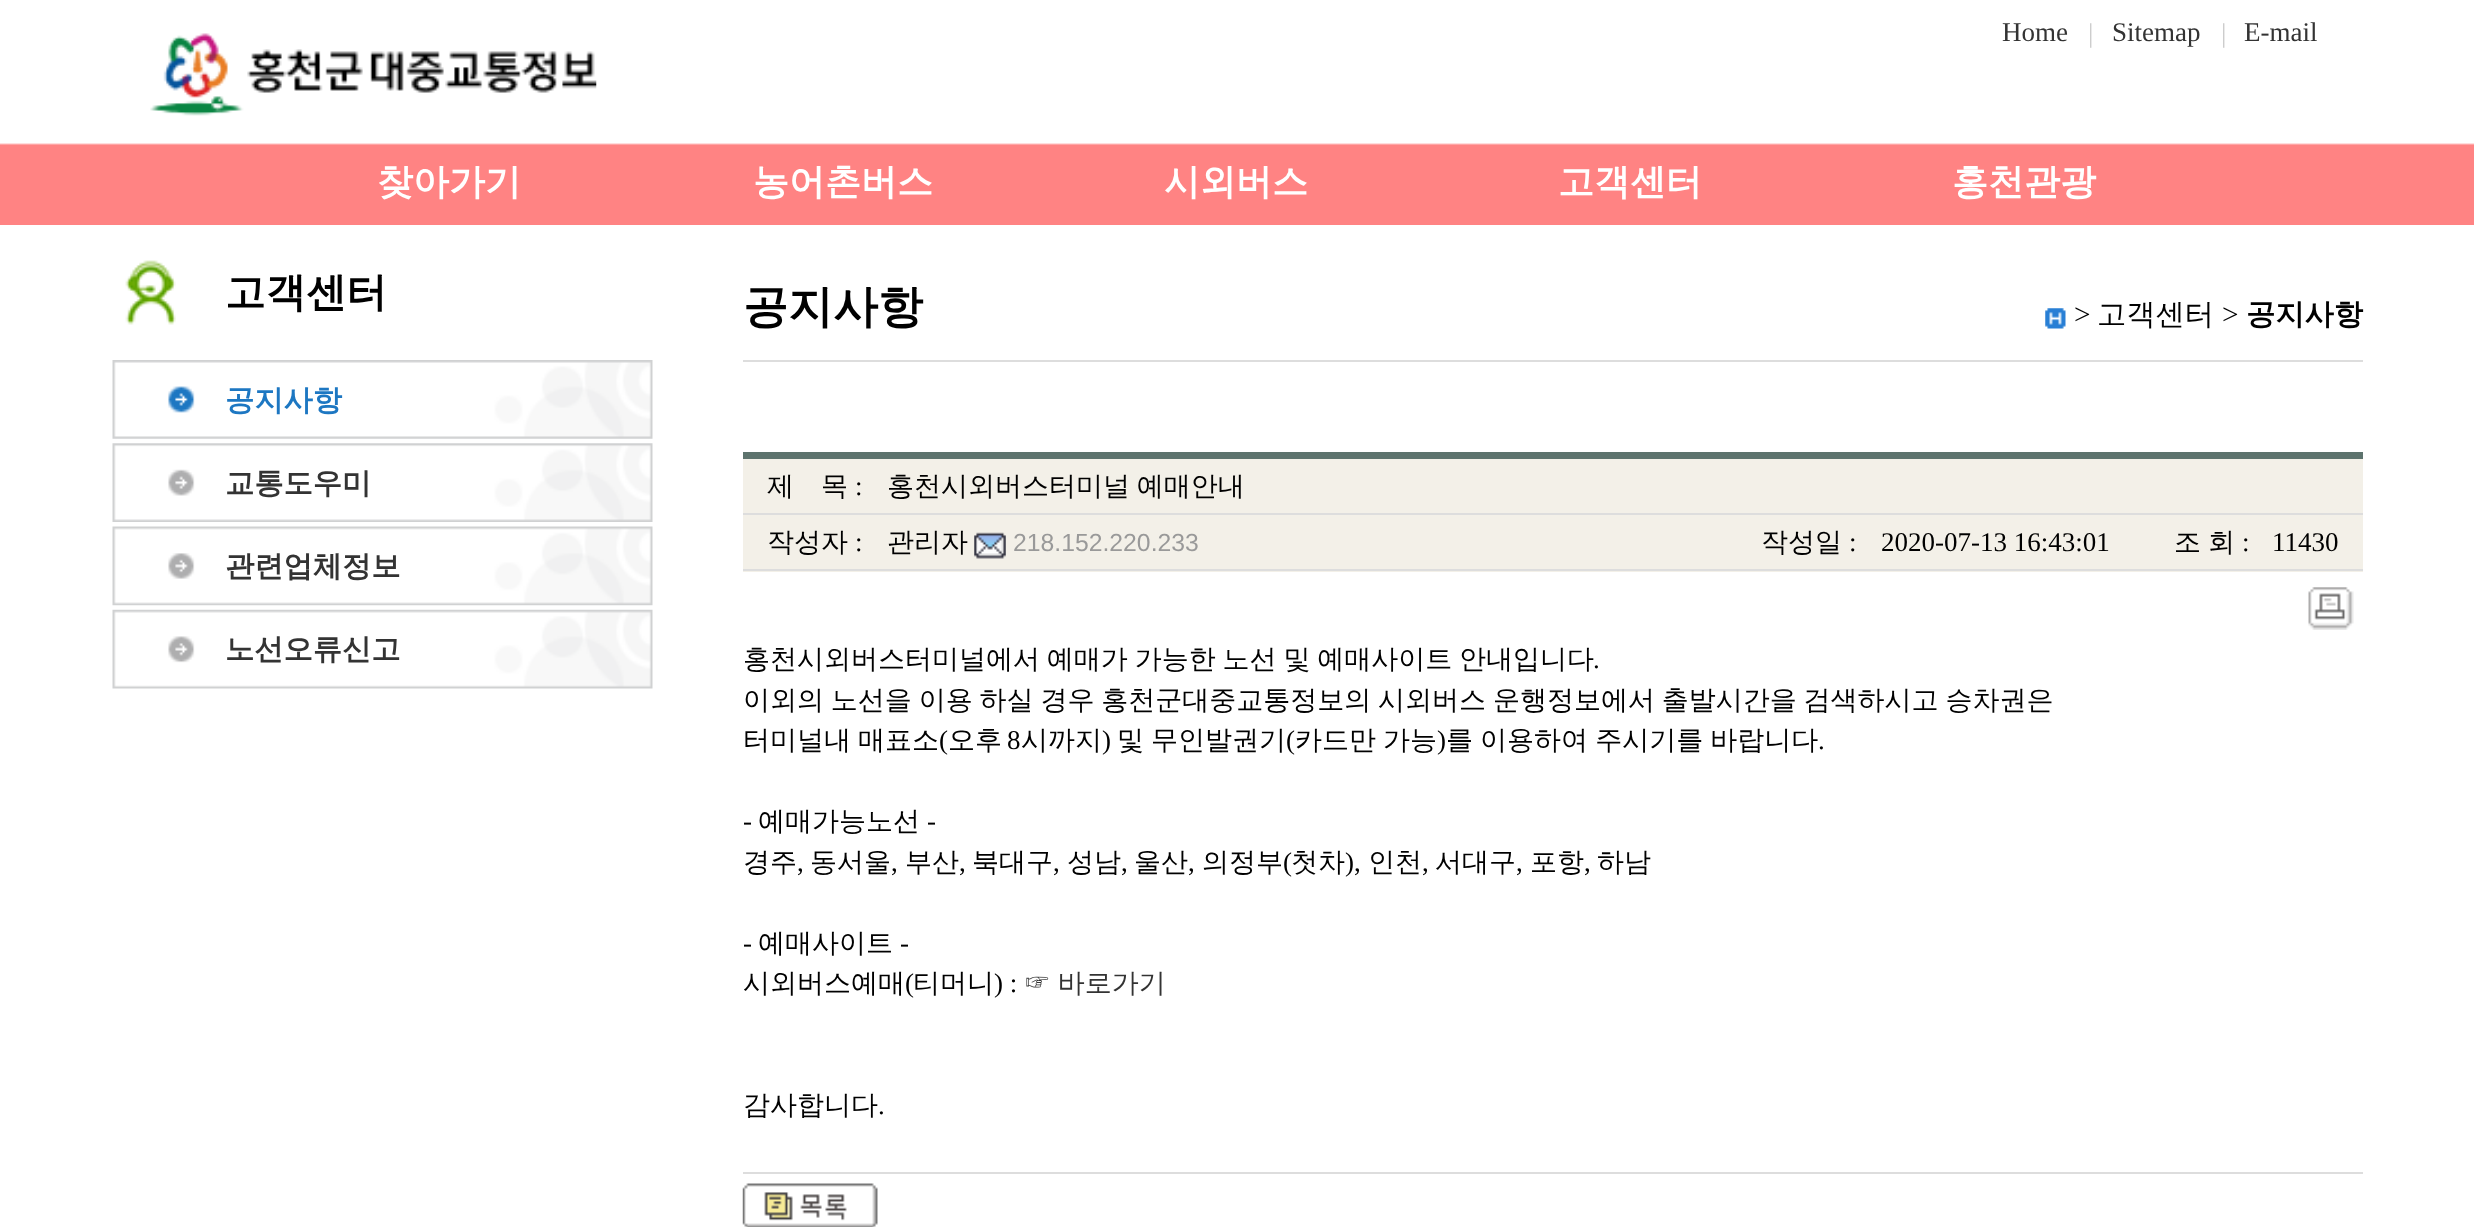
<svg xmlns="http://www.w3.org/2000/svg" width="2474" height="1227">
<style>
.a{font:27px Liberation Serif;fill:#333}
.b{font:27px Liberation Serif;fill:#ccc}
.c{font:bold 36px WenQuanYi Zen Hei;fill:#fff}
.d{font:bold 40.5px WenQuanYi Zen Hei;fill:#000}
.e{font:bold 29.25px WenQuanYi Zen Hei;fill:#1d77c2}
.f{font:bold 29.25px WenQuanYi Zen Hei;fill:#333}
.g{font:bold 45px WenQuanYi Zen Hei;fill:#000}
.h{font:29.25px Liberation Serif;fill:#000}
.i{font:500 29.25px WenQuanYi Zen Hei;fill:#000}
.j{font:bold 29.25px WenQuanYi Zen Hei;fill:#000}
.k{font:500 27px WenQuanYi Zen Hei;fill:#000}
.l{font:27px Liberation Serif;fill:#000}
.m{font:24.75px Liberation Sans;fill:#999}
.n{font:500 27px WenQuanYi Zen Hei;fill:#333}
</style>
<rect width="100%" height="100%" fill="#fff"/>
<image href="1.png" x="0" y="143" width="2474" height="82"/>
<image href="2.png" x="150" y="33" width="447" height="83"/>
<image href="3.png" x="125" y="260" width="51" height="65"/>
<image href="4.png" x="112" y="360" width="541" height="79"/>
<image href="5.png" x="112" y="443" width="541" height="79"/>
<image href="6.png" x="112" y="526" width="541" height="80"/>
<image href="7.png" x="112" y="609" width="541" height="80"/>
<path fill="#ddd" d="M743 360h1620v2H743z"/>
<image href="8.png" x="2045" y="308" width="21" height="21"/>
<path fill="#5d736d" d="M743 452h1620v7H743z"/>
<path fill="#f3f0e8" d="M743 459h1620v54H743z"/>
<path fill="#ddd" d="M743 513h1620v2H743z"/>
<path fill="#f3f0e8" d="M743 515h1620v57H743z"/>
<path fill="#ddd" d="M743 569h1620v2H743z"/>
<image href="9.png" x="974" y="532" width="32" height="27"/>
<path fill="#ddd" d="M743 1172h1620v2H743z"/>
<image href="10.png" x="2308" y="587" width="46" height="43"/>
<image href="11.png" x="742" y="1183" width="136" height="44"/>
<text class="a" x="2002" y="41">Home</text>
<text class="b" x="2088" y="42">|</text>
<text class="a" x="2112" y="41">Sitemap</text>
<text class="b" x="2221" y="42">|</text>
<text class="a" x="2244" y="41">E-mail</text>
<text class="c" x="377" y="194">찾아가기</text>
<text class="c" x="753" y="194">농어촌버스</text>
<text class="c" x="1164" y="194">시외버스</text>
<text class="c" x="1558" y="194">고객센터</text>
<text class="c" x="1952" y="194">홍천관광</text>
<text class="d" x="225" y="306">고객센터</text>
<text class="e" x="225" y="410">공지사항</text>
<text class="f" x="225" y="493">교통도우미</text>
<text class="f" x="225" y="576">관련업체정보</text>
<text class="f" x="225" y="659">노선오류신고</text>
<text class="g" x="743" y="322">공지사항</text>
<text class="h" x="2074" y="324">&gt;</text>
<text class="i" x="2097" y="324">고객센터</text>
<text class="h" x="2222" y="324">&gt;</text>
<text class="j" x="2246" y="324">공지사항</text>
<text class="k" x="767" y="495">제　목</text>
<text class="l" x="855" y="495">:</text>
<text class="k" x="887" y="495" word-spacing="-1.25">홍천시외버스터미널 예매안내</text>
<text class="k" x="767" y="551">작성자</text>
<text class="l" x="855" y="551">:</text>
<text class="k" x="887" y="551">관리자</text>
<text class="m" x="1013" y="551">218.152.220.233</text>
<text class="k" x="1761" y="551">작성일</text>
<text class="l" x="1849" y="551">:</text>
<text class="l" x="1881" y="551">2020-07-13 16:43:01</text>
<text class="k" x="2174" y="551" word-spacing="-1">조 회</text>
<text class="l" x="2242" y="551">:</text>
<text class="l" x="2272" y="551">11430</text>
<text class="k" x="743" y="668" word-spacing="-1.25">홍천시외버스터미널에서 예매가 가능한 노선 및 예매사이트 안내입니다</text>
<text class="l" x="1593" y="668">.</text>
<text class="k" x="743" y="709" word-spacing="-1.25">이외의 노선을 이용 하실 경우 홍천군대중교통정보의 시외버스 운행정보에서 출발시간을 검색하시고 승차권은</text>
<text class="k" x="743" y="749" word-spacing="-1">터미널내 매표소</text>
<text class="l" x="939" y="749">(</text>
<text class="k" x="948" y="749">오후</text>
<text class="l" x="1007" y="749">8</text>
<text class="k" x="1021" y="749">시까지</text>
<text class="l" x="1102" y="749">)</text>
<text class="k" x="1117" y="749" word-spacing="-1">및 무인발권기</text>
<text class="l" x="1286" y="749">(</text>
<text class="k" x="1295" y="749" word-spacing="-1">카드만 가능</text>
<text class="l" x="1437" y="749">)</text>
<text class="k" x="1446" y="749" word-spacing="-1">를 이용하여 주시기를 바랍니다</text>
<text class="l" x="1818" y="749">.</text>
<text class="l" x="743" y="830">-</text>
<text class="k" x="758" y="830">예매가능노선</text>
<text class="l" x="927" y="830">-</text>
<text class="k" x="743" y="871">경주</text>
<text class="l" x="797" y="871">,</text>
<text class="k" x="810" y="871">동서울</text>
<text class="l" x="891" y="871">,</text>
<text class="k" x="905" y="871">부산</text>
<text class="l" x="959" y="871">,</text>
<text class="k" x="972" y="871">북대구</text>
<text class="l" x="1053" y="871">,</text>
<text class="k" x="1067" y="871">성남</text>
<text class="l" x="1121" y="871">,</text>
<text class="k" x="1134" y="871">울산</text>
<text class="l" x="1188" y="871">,</text>
<text class="k" x="1202" y="871">의정부</text>
<text class="l" x="1283" y="871">(</text>
<text class="k" x="1291" y="871">첫차</text>
<text class="l" x="1345" y="871">),</text>
<text class="k" x="1368" y="871">인천</text>
<text class="l" x="1422" y="871">,</text>
<text class="k" x="1435" y="871">서대구</text>
<text class="l" x="1516" y="871">,</text>
<text class="k" x="1530" y="871">포항</text>
<text class="l" x="1584" y="871">,</text>
<text class="k" x="1597" y="871">하남</text>
<text class="l" x="743" y="952">-</text>
<text class="k" x="758" y="952">예매사이트</text>
<text class="l" x="900" y="952">-</text>
<text class="k" x="743" y="992">시외버스예매</text>
<text class="l" x="905" y="992">(</text>
<text class="k" x="913" y="992">티머니</text>
<text class="l" x="994" y="992">) :</text>
<text class="n" x="1024" y="992" word-spacing="-1.25">☞ 바로가기</text>
<text class="k" x="743" y="1114">감사합니다</text>
<text class="l" x="878" y="1114">.</text>
</svg>
